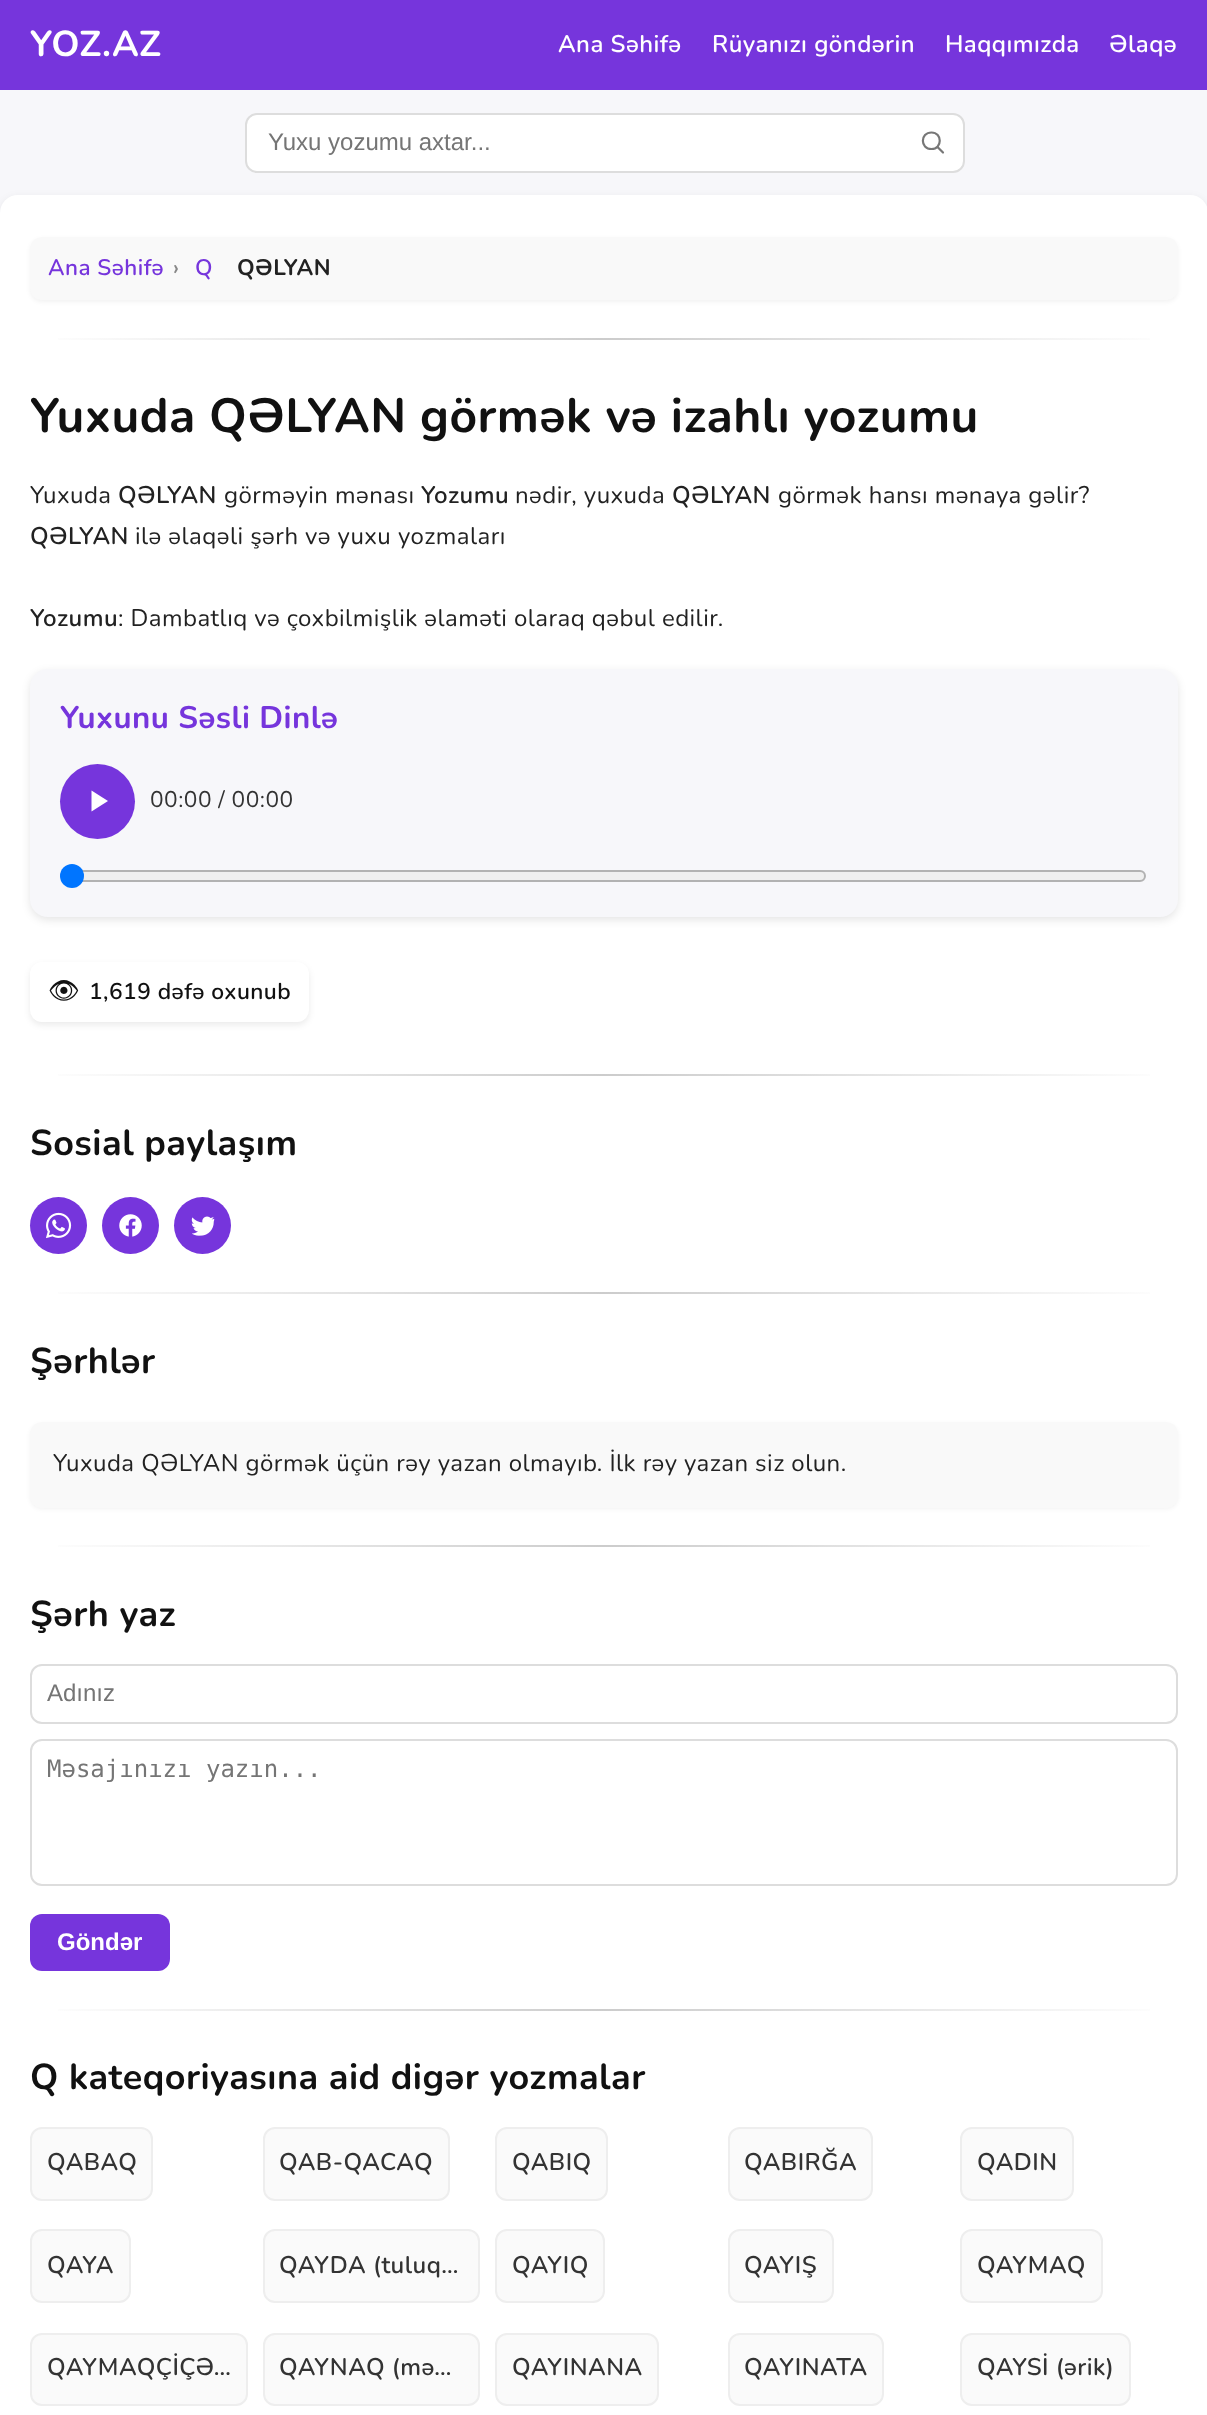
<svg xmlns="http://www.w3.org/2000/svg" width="1207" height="2415">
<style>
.a{font:bold 36px Nunito;letter-spacing:0.45px;fill:#fff}
.b{font:600 24px Nunito;letter-spacing:0.45px;fill:#fff}
.c{font:24px Liberation Sans;fill:#757575}
.d{font:600 22.5px Nunito;letter-spacing:0.45px;fill:#7635dc}
.e{font:600 22.5px Nunito;letter-spacing:0.45px;fill:#888}
.f{font:bold 22.5px Nunito;letter-spacing:0.45px;fill:#222}
.g{font:bold 48px Nunito;letter-spacing:0.45px;fill:#111}
.h{font:24px Nunito;letter-spacing:0.45px;fill:#222}
.i{font:600 24px Nunito;letter-spacing:0.45px;fill:#222}
.j{font:bold 31.25px Nunito;letter-spacing:0.45px;fill:#7635dc}
.k{font:22.75px Nunito;letter-spacing:0.45px;fill:#333}
.l{font:600 25px Noto Emoji;letter-spacing:0.45px;fill:#111}
.m{font:600 22.75px Nunito;letter-spacing:0.45px;fill:#111}
.n{font:bold 36px Nunito;letter-spacing:0.45px;fill:#111}
.o{font:24px DejaVu Sans Mono;fill:#757575}
.p{font:bold 24px Liberation Sans;fill:#fff}
.q{font:600 24px Nunito;letter-spacing:0.45px;fill:#333}
</style>
<defs>
<linearGradient id="g1" gradientUnits="userSpaceOnUse" x1="30" y1="338" x2="1178" y2="338"><stop offset="0" stop-color="#fff"/><stop offset="0.5" stop-color="#ccc"/><stop offset="1" stop-color="#fff"/></linearGradient>
<linearGradient id="g2" gradientUnits="userSpaceOnUse" x1="30" y1="1075" x2="1178" y2="1075"><stop offset="0" stop-color="#fff"/><stop offset="0.5" stop-color="#ccc"/><stop offset="1" stop-color="#fff"/></linearGradient>
<linearGradient id="g3" gradientUnits="userSpaceOnUse" x1="30" y1="1292" x2="1178" y2="1292"><stop offset="0" stop-color="#fff"/><stop offset="0.5" stop-color="#ccc"/><stop offset="1" stop-color="#fff"/></linearGradient>
<linearGradient id="g4" gradientUnits="userSpaceOnUse" x1="30" y1="1546" x2="1178" y2="1546"><stop offset="0" stop-color="#fff"/><stop offset="0.5" stop-color="#ccc"/><stop offset="1" stop-color="#fff"/></linearGradient>
<linearGradient id="g5" gradientUnits="userSpaceOnUse" x1="30" y1="2009" x2="1178" y2="2009"><stop offset="0" stop-color="#fff"/><stop offset="0.5" stop-color="#ccc"/><stop offset="1" stop-color="#fff"/></linearGradient>
</defs>
<rect width="100%" height="100%" fill="#f7f7fa"/>
<path fill="#7635dc" d="M0 0h1207v90H0z"/>
<rect fill="#fff" stroke="#ddd" stroke-width="2" x="246" y="114" width="718" height="58" rx="11"/>
<path fill="none" stroke="#777" stroke-width="2.2" stroke-linecap="round" d="M943 152.5l-5-5m-6.5 1.5c-11.5 0-11.5-16.5 0-16.5c11 0 11 16.5 0 16.5z"/>
<rect fill="#00000014" filter="blur(4px)" y="198" width="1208" height="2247" rx="18"/>
<rect fill="#fff" y="195" width="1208" height="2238" rx="18"/>
<rect fill="#0000000d" filter="blur(2px)" x="30" y="239" width="1148" height="63" rx="12"/>
<rect fill="#f9f9f9" x="30" y="237" width="1148" height="63" rx="12"/>
<path fill="url(#g1)" d="M58 338h1092v2H58z"/>
<rect fill="#0000001a" filter="blur(4.5px)" x="30" y="672" width="1148" height="248" rx="18"/>
<rect fill="#f7f7fa" x="30" y="669" width="1148" height="248" rx="18"/>
<circle fill="#7635dc" cx="97.5" cy="801.5" r="37.5"/>
<path fill="#fff" d="M91.5 790.5v21l16.5-10.5z"/>
<rect fill="#efefef" stroke="#b2b2b2" stroke-width="2" x="63" y="871" width="1082" height="10" rx="5"/>
<circle fill="#0075ff" cx="72" cy="876" r="12"/>
<rect fill="#00000014" filter="blur(3px)" x="30" y="965" width="279" height="60" rx="12"/>
<rect fill="#fff" x="30" y="962" width="279" height="60" rx="12"/>
<path fill="url(#g2)" d="M58 1074h1092v2H58z"/>
<circle fill="#7635dc" cx="58.5" cy="1225.5" r="28.5"/>
<image href="1.png" x="46" y="1212" width="26" height="27"/>
<circle fill="#7635dc" cx="130.5" cy="1225.5" r="28.5"/>
<image href="2.png" x="119" y="1214" width="23" height="23"/>
<circle fill="#7635dc" cx="202.5" cy="1225.5" r="28.5"/>
<image href="3.png" x="191" y="1216" width="24" height="20"/>
<path fill="url(#g3)" d="M58 1292h1092v2H58z"/>
<rect fill="#0000000d" filter="blur(2px)" x="30" y="1424" width="1148" height="85" rx="12"/>
<rect fill="#f9f9f9" x="30" y="1422" width="1148" height="86" rx="12"/>
<path fill="url(#g4)" d="M58 1545h1092v2H58z"/>
<rect fill="none" stroke="#ddd" stroke-width="2" x="31" y="1665" width="1146" height="58" rx="11"/>
<rect fill="none" stroke="#ddd" stroke-width="2" x="31" y="1740" width="1146" height="145" rx="11"/>
<rect fill="#7635dc" x="30" y="1914" width="140" height="57" rx="12"/>
<path fill="url(#g5)" d="M58 2009h1092v2H58z"/>
<rect fill="#fafafa" stroke="#eee" stroke-width="2" x="31" y="2128" width="121" height="72" rx="11"/>
<rect fill="#fafafa" stroke="#eee" stroke-width="2" x="264" y="2128" width="185" height="72" rx="11"/>
<rect fill="#fafafa" stroke="#eee" stroke-width="2" x="496" y="2128" width="111" height="72" rx="11"/>
<rect fill="#fafafa" stroke="#eee" stroke-width="2" x="729" y="2128" width="143" height="72" rx="11"/>
<rect fill="#fafafa" stroke="#eee" stroke-width="2" x="961" y="2128" width="112" height="72" rx="11"/>
<rect fill="#fafafa" stroke="#eee" stroke-width="2" x="31" y="2230" width="99" height="72" rx="11"/>
<rect fill="#fafafa" stroke="#eee" stroke-width="2" x="264" y="2230" width="215" height="72" rx="11"/>
<rect fill="#fafafa" stroke="#eee" stroke-width="2" x="496" y="2230" width="108" height="72" rx="11"/>
<rect fill="#fafafa" stroke="#eee" stroke-width="2" x="729" y="2230" width="104" height="72" rx="11"/>
<rect fill="#fafafa" stroke="#eee" stroke-width="2" x="961" y="2230" width="141" height="72" rx="11"/>
<rect fill="#fafafa" stroke="#eee" stroke-width="2" x="31" y="2334" width="216" height="71" rx="11"/>
<rect fill="#fafafa" stroke="#eee" stroke-width="2" x="264" y="2334" width="215" height="71" rx="11"/>
<rect fill="#fafafa" stroke="#eee" stroke-width="2" x="496" y="2334" width="162" height="71" rx="11"/>
<rect fill="#fafafa" stroke="#eee" stroke-width="2" x="729" y="2334" width="154" height="71" rx="11"/>
<rect fill="#fafafa" stroke="#eee" stroke-width="2" x="961" y="2334" width="169" height="71" rx="11"/>
<text class="a" x="30" y="56">YOZ.AZ</text>
<text class="b" x="558" y="52">Ana Səhifə</text>
<text class="b" x="712" y="52">Rüyanızı göndərin</text>
<text class="b" x="945" y="52">Haqqımızda</text>
<text class="b" x="1109" y="52">Əlaqə</text>
<text class="c" x="268" y="150">Yuxu yozumu axtar...</text>
<text class="d" x="48" y="275">Ana Səhifə</text>
<text class="e" x="173" y="275">›</text>
<text class="d" x="195" y="275">Q</text>
<text class="f" x="237" y="275">QƏLYAN</text>
<text class="g" x="30" y="432">Yuxuda QƏLYAN görmək və izahlı yozumu</text>
<text class="h" x="30" y="503">Yuxuda</text>
<text class="i" x="118" y="503">QƏLYAN</text>
<text class="h" x="224" y="503">görməyin mənası</text>
<text class="i" x="421" y="503">Yozumu</text>
<text class="h" x="515" y="503">nədir, yuxuda</text>
<text class="i" x="672" y="503">QƏLYAN</text>
<text class="h" x="778" y="503">görmək hansı mənaya gəlir?</text>
<text class="i" x="30" y="544">QƏLYAN</text>
<text class="h" x="135" y="544">ilə əlaqəli şərh və yuxu yozmaları</text>
<text class="i" x="30" y="626">Yozumu</text>
<text class="h" x="118" y="626">: Dambatlıq və çoxbilmişlik əlaməti olaraq qəbul edilir.</text>
<text class="j" x="60" y="728">Yuxunu Səsli Dinlə</text>
<text class="k" x="150" y="807">00:00 / 00:00</text>
<text class="l" x="48" y="999">👁</text>
<text class="m" x="89" y="999">1,619 dəfə oxunub</text>
<text class="n" x="30" y="1155">Sosial paylaşım</text>
<text class="n" x="30" y="1373">Şərhlər</text>
<text class="h" x="53" y="1471">Yuxuda QƏLYAN görmək üçün rəy yazan olmayıb. İlk rəy yazan siz olun.</text>
<text class="n" x="30" y="1626">Şərh yaz</text>
<text class="c" x="47" y="1701">Adınız</text>
<text class="o" x="47" y="1777">Məsajınızı yazın...</text>
<text class="p" x="57" y="1950">Göndər</text>
<text class="n" x="30" y="2089">Q kateqoriyasına aid digər yozmalar</text>
<text class="q" x="47" y="2170">QABAQ</text>
<text class="q" x="279" y="2170">QAB-QACAQ</text>
<text class="q" x="512" y="2170">QABIQ</text>
<text class="q" x="744" y="2170">QABIRĞA</text>
<text class="q" x="977" y="2170">QADIN</text>
<text class="q" x="47" y="2273">QAYA</text>
<text class="q" x="279" y="2273">QAYDA (tuluq…</text>
<text class="q" x="512" y="2273">QAYIQ</text>
<text class="q" x="744" y="2273">QAYIŞ</text>
<text class="q" x="977" y="2273">QAYMAQ</text>
<text class="q" x="47" y="2375">QAYMAQÇİÇƏ…</text>
<text class="q" x="279" y="2375">QAYNAQ (mə…</text>
<text class="q" x="512" y="2375">QAYINANA</text>
<text class="q" x="744" y="2375">QAYINATA</text>
<text class="q" x="977" y="2375">QAYSİ (ərik)</text>
</svg>
